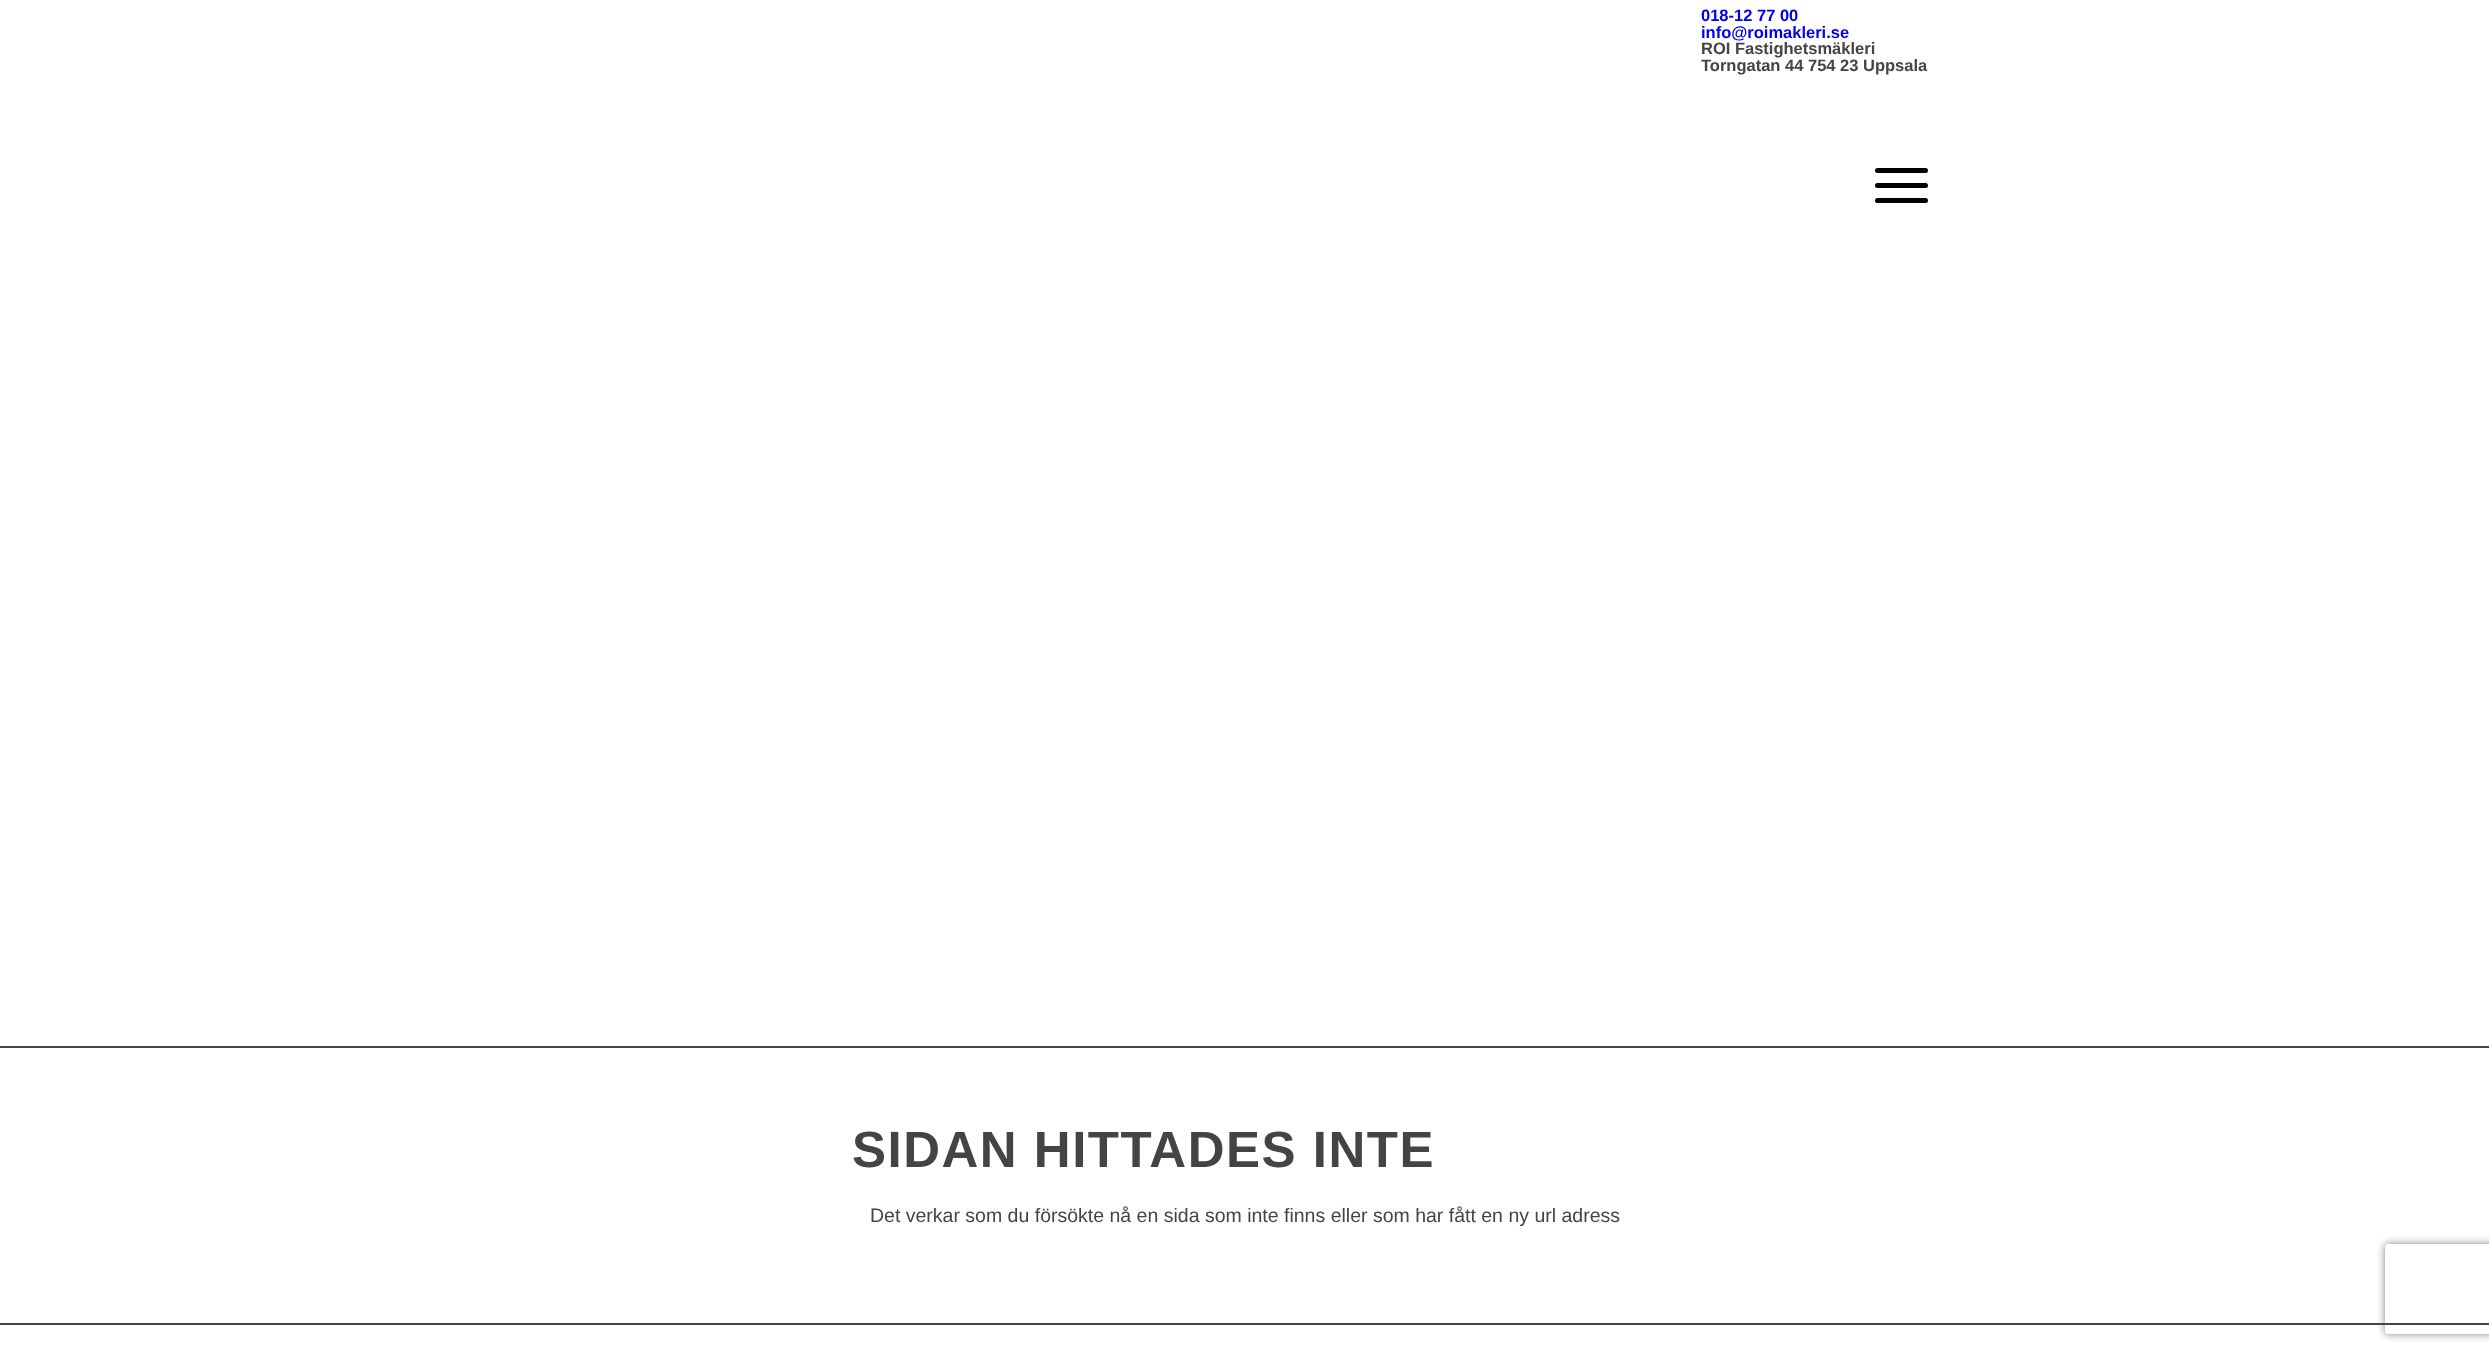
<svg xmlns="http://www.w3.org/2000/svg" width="2489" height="1354">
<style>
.a{font:bold 16.5px Liberation Sans;fill:#00e}
.b{font:bold 16.5px Liberation Sans;fill:#444}
.c{font:bold 51px Liberation Sans;letter-spacing:1.5px;fill:#444}
.d{font:19.5px Liberation Sans;fill:#444}
</style>
<defs>
<clipPath id="clip1"><path d="M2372 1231h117v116h-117zm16 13h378c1.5 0 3 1.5 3 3v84c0 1.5-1.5 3-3 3h-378c-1.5 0-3-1.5-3-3v-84c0-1.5 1.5-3 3-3z" clip-rule="evenodd"/></clipPath>
</defs>
<rect width="100%" height="100%" fill="#fff"/>
<rect fill="#000" x="1875" y="183" width="53" height="5" rx="2.5"/>
<rect fill="#000" x="1875" y="168" width="53" height="5" rx="2.5"/>
<rect fill="#000" x="1875" y="198" width="53" height="5" rx="2.5"/>
<path fill="#444" d="M0 1046h2489v2H0z"/>
<g clip-path="url(#clip1)">
<rect fill="#808080" filter="blur(4px)" x="2385" y="1244" width="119" height="90" rx="3"/>
</g>
<path fill="#444" d="M0 1323h2489v2H0z"/>
<text class="a" x="1701" y="21">018-12 77 00</text>
<text class="a" x="1701" y="38">info@roimakleri.se</text>
<text class="b" x="1701" y="54">ROI Fastighetsmäkleri</text>
<text class="b" x="1701" y="71">Torngatan 44 754 23 Uppsala</text>
<text class="c" x="852" y="1167">SIDAN HITTADES INTE</text>
<text class="d" x="870" y="1222">Det verkar som du försökte nå en sida som inte finns eller som har fått en ny url adress</text>
</svg>
